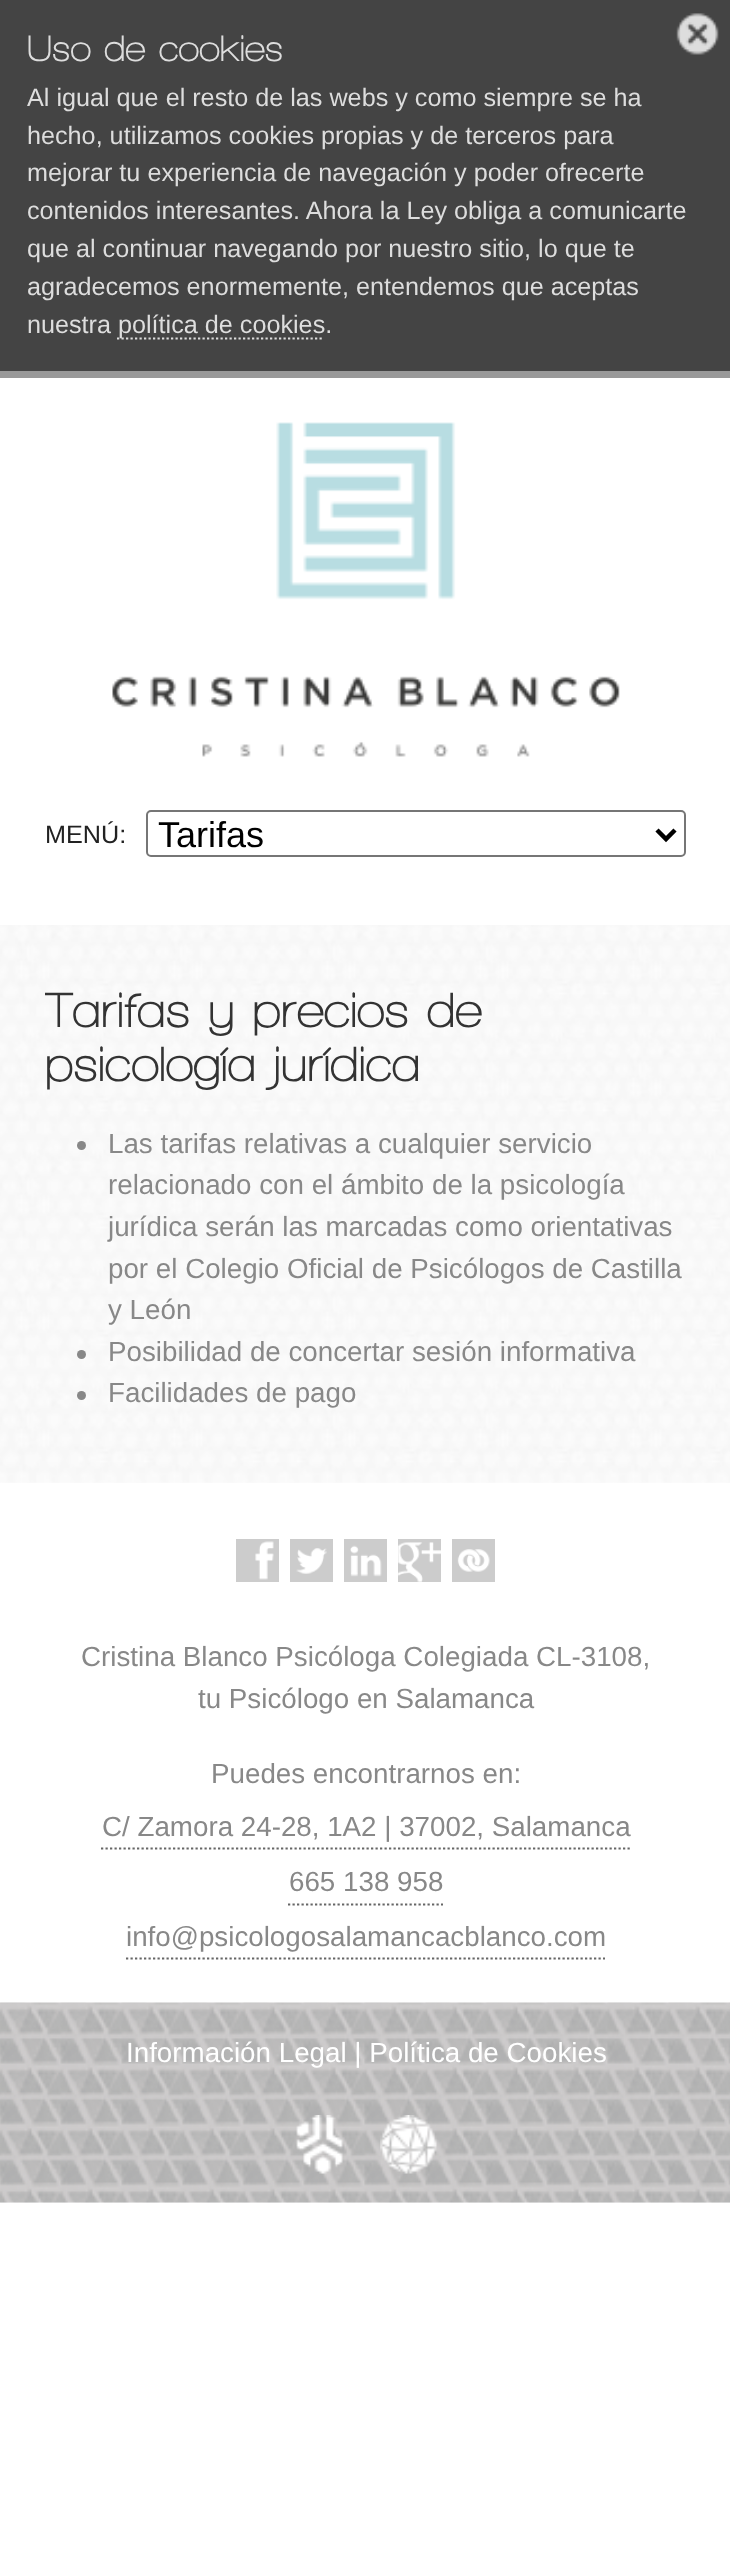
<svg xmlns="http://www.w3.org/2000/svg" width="730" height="2571">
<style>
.a{font:bold 37.75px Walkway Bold;fill:#ddd}
.b{font:25.2px Liberation Sans;fill:#ddd}
.c{font:25.2px Liberation Sans;fill:#222}
.d{font:36px Liberation Sans;fill:#000}
.e{font:bold 50.5px Walkway Bold;fill:#333}
.f{font:27.75px Liberation Sans;fill:#888}
.g{font:27.75px Liberation Sans;fill:#fff}
</style>
<defs>
<clipPath id="clip1"><path d="M45 970h641v468H45z"/></clipPath>
</defs>
<rect width="100%" height="100%" fill="#fff"/>
<path fill="#444" d="M0 0h730v371H0z"/>
<path fill="#999" d="M0 371h730v7H0z"/>
<path fill="none" stroke="#ddd" stroke-width="2.2" stroke-dasharray="2.25 2.25" d="M117 338.5h207"/>
<image href="1.png" x="676" y="13" width="43" height="42"/>
<image href="2.png" x="112" y="422" width="508" height="335"/>
<rect fill="none" stroke="#767676" stroke-width="2" x="147" y="811" width="538" height="45" rx="4"/>
<path fill="none" stroke="#000" stroke-width="4.5" d="M657 830l9 9l9-9"/>
<image href="3.png" x="0" y="925" width="730" height="558"/>
<circle fill="#888" cx="81.5" cy="1145.5" r="4.5"/>
<circle fill="#888" cx="81.5" cy="1354.5" r="4.5"/>
<circle fill="#888" cx="81.5" cy="1395.5" r="4.5"/>
<path fill="#ccc" d="M236 1539h43v43H236z"/>
<image href="4.png" x="255" y="1541" width="19" height="39"/>
<path fill="#ccc" d="M290 1539h43v43H290z"/>
<image href="5.png" x="296" y="1548" width="31" height="26"/>
<path fill="#ccc" d="M344 1539h43v43H344z"/>
<image href="6.png" x="350" y="1545" width="32" height="32"/>
<path fill="#ccc" d="M398 1539h43v43H398z"/>
<image href="7.png" x="398" y="1542" width="43" height="40"/>
<path fill="#ccc" d="M452 1539h43v43H452z"/>
<image href="8.png" x="457" y="1549" width="33" height="23"/>
<path fill="none" stroke="#666" stroke-width="2.2" stroke-dasharray="2.25 2.25" d="M101 1848.5h529"/>
<path fill="none" stroke="#666" stroke-width="2.2" stroke-dasharray="2.25 2.25" d="M288 1904.5h155"/>
<path fill="none" stroke="#666" stroke-width="2.2" stroke-dasharray="2.25 2.25" d="M126 1958.5h479"/>
<image href="9.png" x="0" y="2002" width="730" height="201"/>
<image href="10.png" x="296" y="2115" width="47" height="59"/>
<image href="11.png" x="380" y="2115" width="57" height="59"/>
<text class="a" x="27" y="61">Uso de cookies</text>
<text class="b" x="27" y="106">Al igual que el resto de las webs y como siempre se ha</text>
<text class="b" x="27" y="144">hecho, utilizamos cookies propias y de terceros para</text>
<text class="b" x="27" y="181">mejorar tu experiencia de navegación y poder ofrecerte</text>
<text class="b" x="27" y="219">contenidos interesantes. Ahora la Ley obliga a comunicarte</text>
<text class="b" x="27" y="257">que al continuar navegando por nuestro sitio, lo que te</text>
<text class="b" x="27" y="295">agradecemos enormemente, entendemos que aceptas</text>
<text class="b" x="27" y="333">nuestra</text>
<text class="b" x="118" y="333">política de cookies.</text>
<text class="c" x="45" y="843">MENÚ:</text>
<text class="d" x="158" y="847">Tarifas</text>
<g clip-path="url(#clip1)">
<text class="e" x="45" y="1027">Tarifas y precios de</text>
</g>
<text class="e" x="45" y="1081">psicología jurídica</text>
<text class="f" x="108" y="1153">Las tarifas relativas a cualquier servicio</text>
<text class="f" x="108" y="1194">relacionado con el ámbito de la psicología</text>
<text class="f" x="108" y="1236">jurídica serán las marcadas como orientativas</text>
<text class="f" x="108" y="1278">por el Colegio Oficial de Psicólogos de Castilla</text>
<text class="f" x="108" y="1319">y León</text>
<text class="f" x="108" y="1361">Posibilidad de concertar sesión informativa</text>
<text class="f" x="108" y="1402">Facilidades de pago</text>
<text class="f" x="81" y="1666">Cristina Blanco Psicóloga Colegiada CL-3108,</text>
<text class="f" x="198" y="1708">tu Psicólogo en Salamanca</text>
<text class="f" x="211" y="1783">Puedes encontrarnos en:</text>
<text class="f" x="102" y="1836">C/ Zamora 24-28, 1A2 | 37002, Salamanca</text>
<text class="f" x="289" y="1891">665 138 958</text>
<text class="f" x="126" y="1946">info@psicologosalamancacblanco.com</text>
<text class="g" x="126" y="2062">Información Legal | Política de Cookies</text>
</svg>
